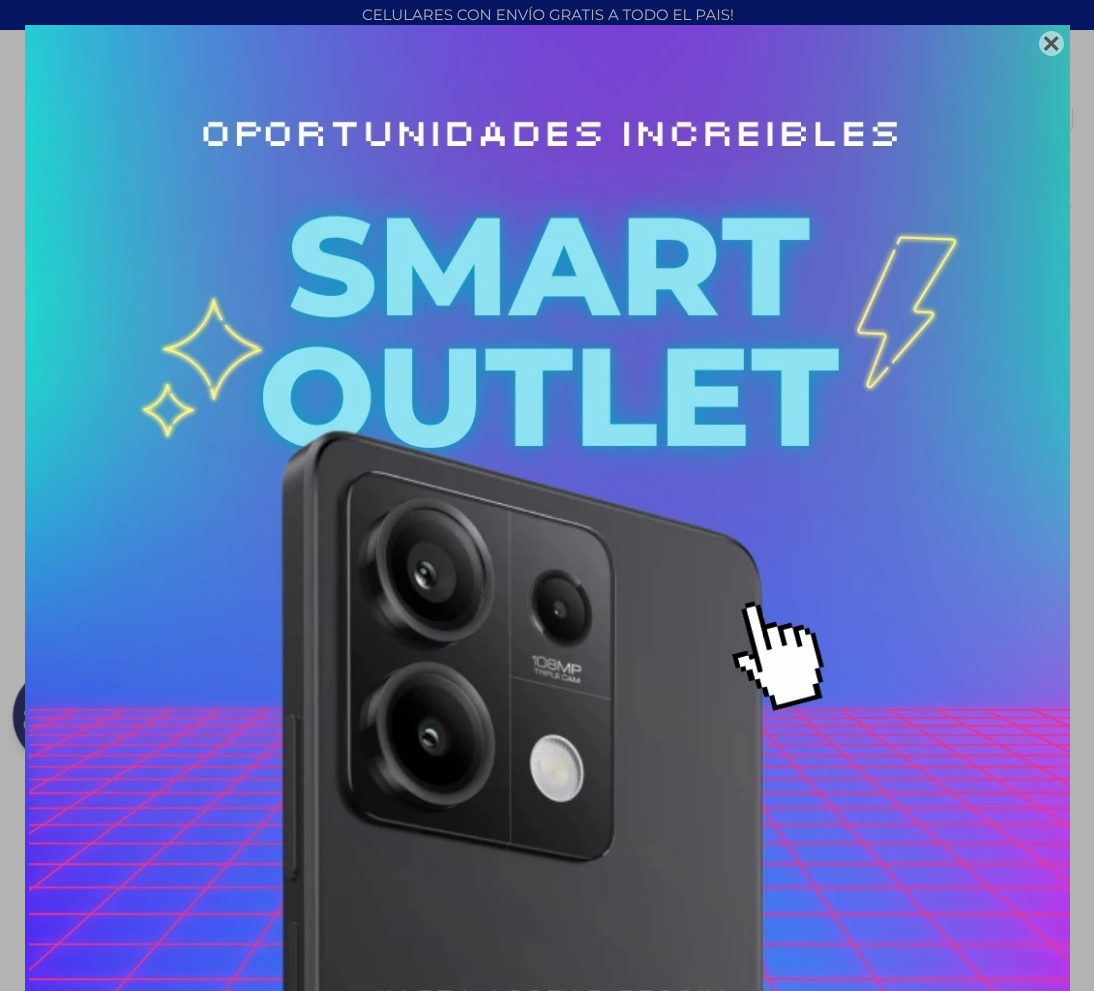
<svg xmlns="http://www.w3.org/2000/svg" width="1094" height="991">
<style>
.a{font:15px Montserrat;fill:#b3b3b3}
</style>
<rect width="100%" height="100%" fill="#b3b3b3"/>
<path fill="#061562" d="M0 0h1094v30H0z"/>
<rect fill="none" stroke="#9d9d9d" x="823.5" y="94.5" width="249" height="36" rx="3.5"/>
<path fill="#b3b3b3" d="M823 94h250v14H823z"/>
<path fill="#9d9d9d" d="M23 206h1050v1H23z"/>
<rect fill="#0000001a" filter="blur(2.5px)" x="15" y="671" width="95" height="95" rx="47.5"/>
<rect fill="#0000001a" filter="blur(4px)" x="14" y="673" width="97" height="97" rx="48.5"/>
<circle fill="#a9acae" cx="63" cy="716" r="50"/>
<image href="1.png" x="25" y="25" width="1045" height="966"/>
<circle fill="#ffffff80" cx="1051.5" cy="43.5" r="12.5"/>
<image href="2.png" x="1043" y="36" width="16" height="15"/>
<image href="3.png" x="12" y="683" width="13" height="67"/>
<text class="a" x="362" y="20">CELULARES CON ENVÍO GRATIS A TODO EL PAIS!</text>
</svg>
